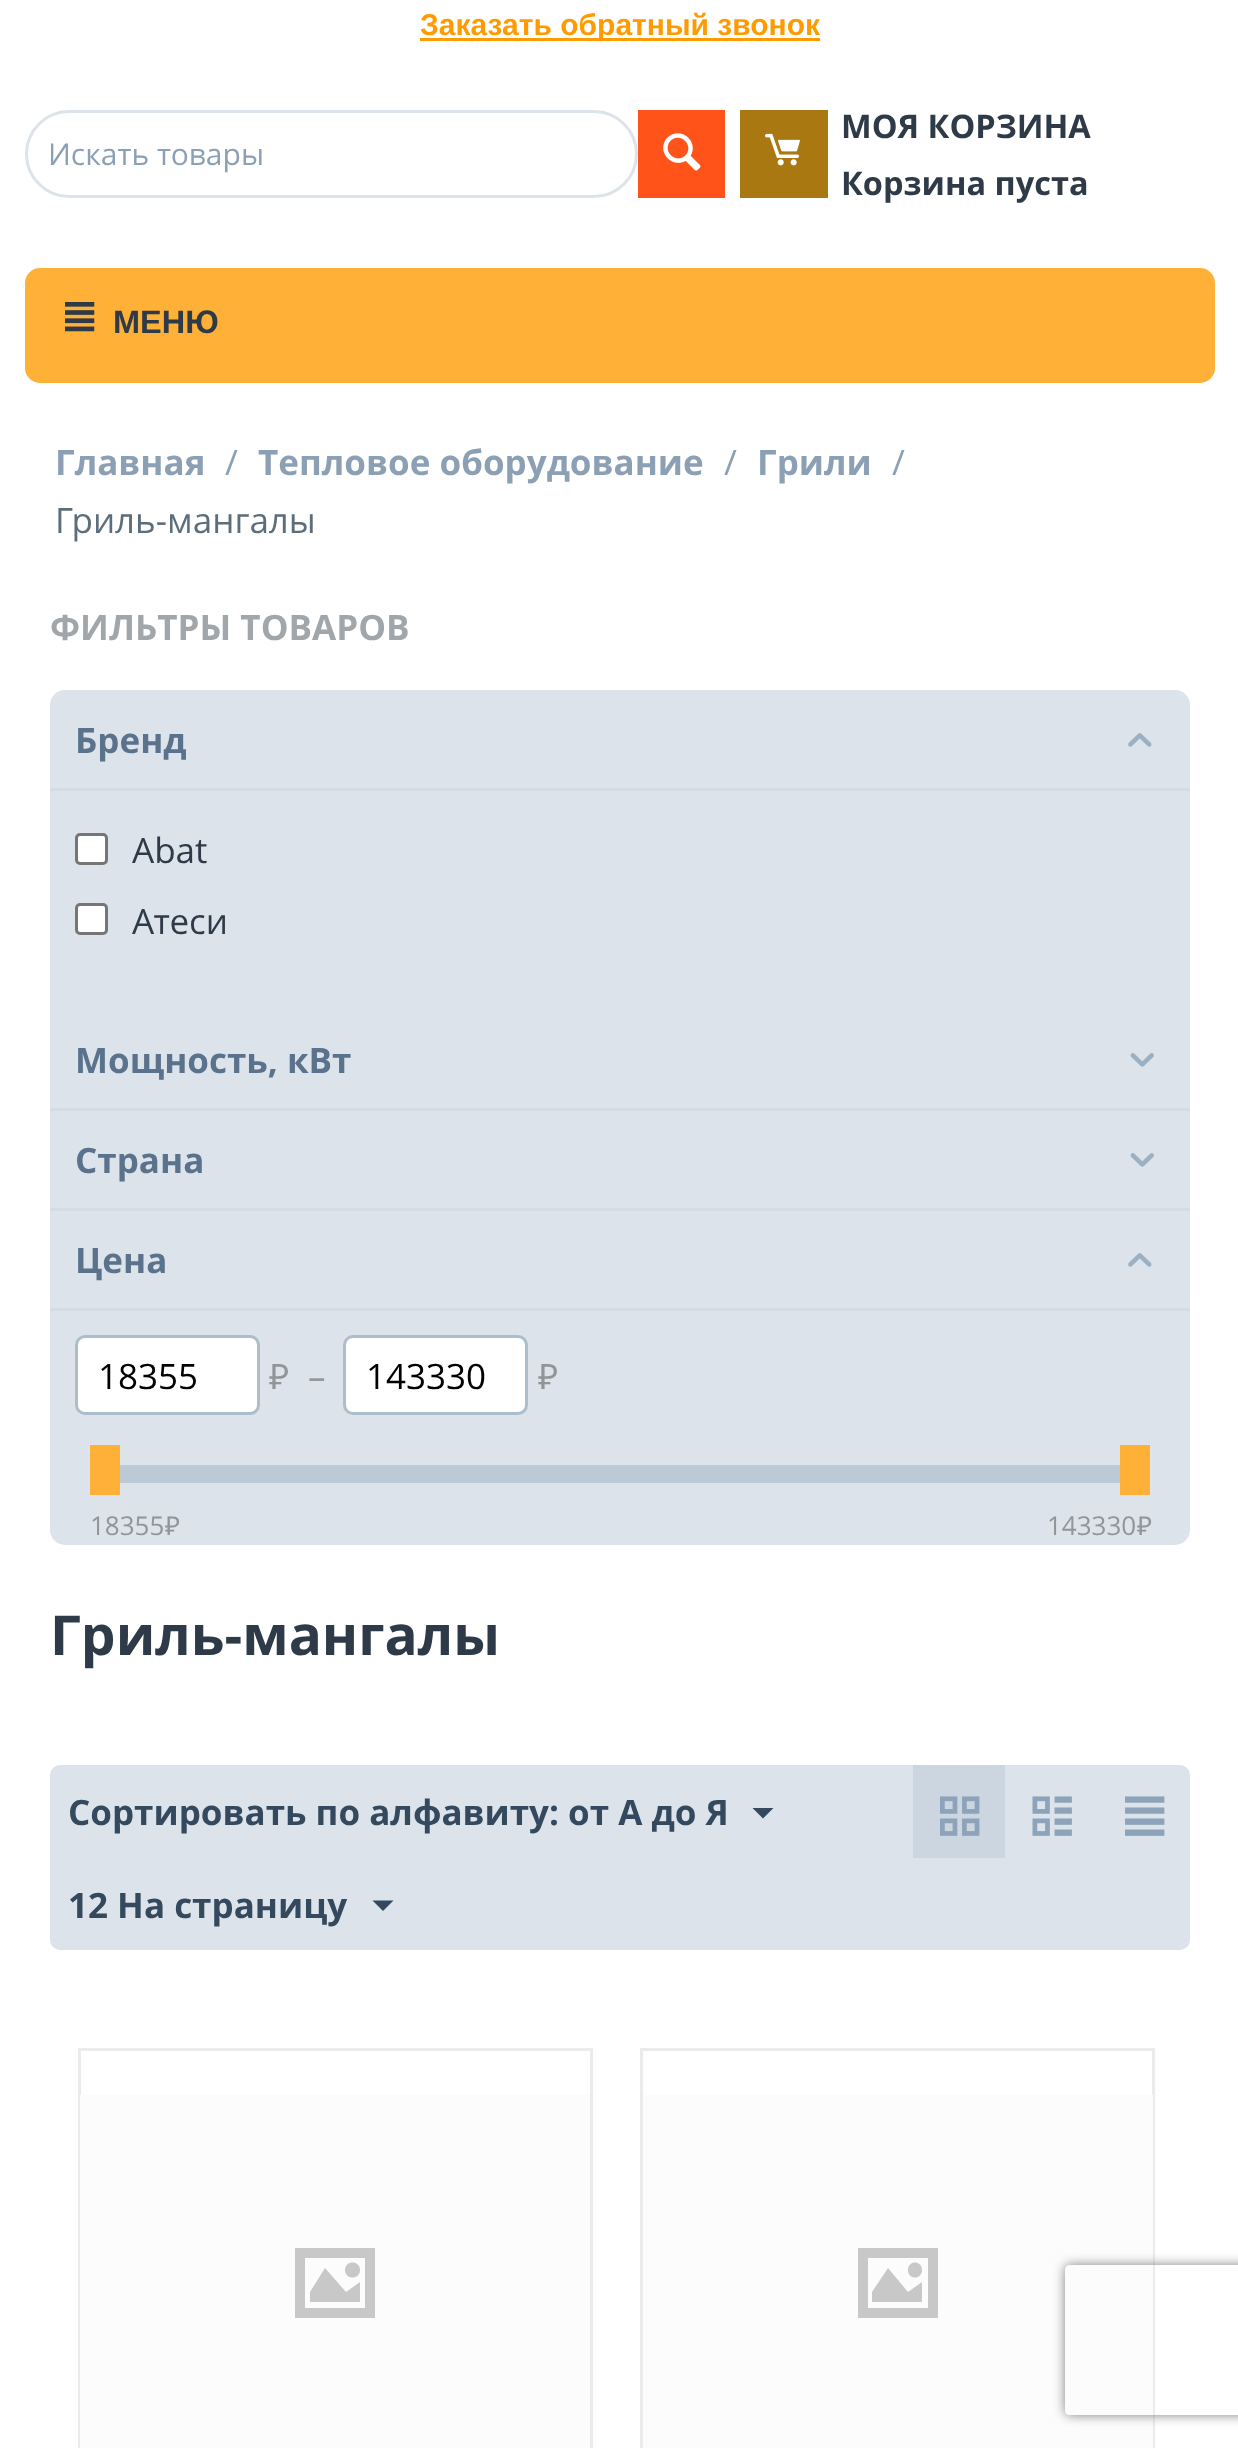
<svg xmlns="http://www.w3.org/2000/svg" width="1238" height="2448">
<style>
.a{font:bold 30px Liberation Sans;fill:#ff9b00}
.b{font:30px Open Sans;fill:#8ca0b5}
.c{font:bold 32.5px Open Sans;fill:#2e3a47}
.d{font:bold 32.5px Liberation Sans;fill:#2e3a47}
.e{font:bold 35px Open Sans;fill:#8ca0b5}
.f{font:35px Open Sans;fill:#8ca0b5}
.g{font:35px Open Sans;fill:#5d6e7b}
.h{font:bold 35px Open Sans;fill:#a1a6aa}
.i{font:bold 35px Open Sans;fill:#5a728b}
.j{font:35px Open Sans;fill:#2e3a47}
.k{font:35px Open Sans;fill:#000}
.l{font:35px Noto Sans;fill:#909598}
.m{font:35px Open Sans;fill:#909598}
.n{font:26px Open Sans;fill:#909598}
.o{font:26px Noto Sans;fill:#909598}
.p{font:bold 55px Open Sans;fill:#2e3a47}
.q{font:bold 35px Open Sans;fill:#34495e}
</style>
<defs>
<clipPath id="clip1"><path d="M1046 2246h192v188h-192zm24 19h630c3 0 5 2 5 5v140c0 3-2 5-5 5h-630c-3 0-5-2-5-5v-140c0-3 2-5 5-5z" clip-rule="evenodd"/></clipPath>
</defs>
<rect width="100%" height="100%" fill="#fff"/>
<path fill="#ff9b00" d="M420 38h400v3H420z"/>
<rect fill="none" stroke="#dce3ea" stroke-width="3" x="26.5" y="111.5" width="610" height="85" rx="42.5"/>
<path fill="#ff5319" d="M638 110h87v88H638z"/>
<image href="1.png" x="663" y="133" width="38" height="38"/>
<path fill="#aa7811" d="M740 110h88v88H740z"/>
<image href="2.png" x="765" y="133" width="35" height="33"/>
<rect fill="#ffb036" x="25" y="268" width="1190" height="115" rx="15"/>
<image href="3.png" x="65" y="302" width="30" height="30"/>
<rect fill="#dce3ea" x="50" y="690" width="1140" height="855" rx="15"/>
<path fill="#d3dbe3" d="M50 788h1140v3H50z"/>
<image href="4.png" x="1128" y="733" width="24" height="14"/>
<rect fill="#fff" stroke="#767676" stroke-width="3" x="76.5" y="834.5" width="30" height="29" rx="3.5"/>
<rect fill="#fff" stroke="#767676" stroke-width="3" x="76.5" y="904.5" width="30" height="29" rx="3.5"/>
<path fill="#d3dbe3" d="M50 1108h1140v3H50z"/>
<image href="5.png" x="1130" y="1053" width="24" height="14"/>
<path fill="#d3dbe3" d="M50 1208h1140v3H50z"/>
<image href="5.png" x="1130" y="1153" width="24" height="14"/>
<path fill="#d3dbe3" d="M50 1308h1140v3H50z"/>
<image href="4.png" x="1128" y="1253" width="24" height="14"/>
<rect fill="#fff" stroke="#acbdcd" stroke-width="3" x="76.5" y="1336.5" width="182" height="77" rx="8.5"/>
<rect fill="#fff" stroke="#acbdcd" stroke-width="3" x="344.5" y="1336.5" width="182" height="77" rx="8.5"/>
<path fill="#ffb036" d="M90 1445h30v50H90z"/>
<path fill="#bccad7" d="M120 1465h1000v18H120z"/>
<path fill="#ffb036" d="M1120 1445h30v50H1120z"/>
<rect fill="#dce3ea" x="50" y="1765" width="1140" height="185" rx="10"/>
<path fill="#34495e" d="M763 1818.5l-10.5-10.5h21z"/>
<path fill="#ccd6e0" d="M913 1765h92v93H913z"/>
<image href="6.png" x="940" y="1796" width="40" height="40"/>
<image href="7.png" x="1032" y="1796" width="40" height="40"/>
<image href="8.png" x="1125" y="1796" width="40" height="40"/>
<path fill="#34495e" d="M383 1911l-10.5-10.5h21z"/>
<path fill="none" stroke="#ebebeb" stroke-width="3" d="M79.5 2049.5h512v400H79.5z"/>
<path fill="#fcfcfc" d="M80 2095h510v353H80z"/>
<path fill="#c8c8c8" d="M365 2258h-60v50h60zm10-10v70h-80v-70zm-15 54h-50v-10l15-24l21 24l14-10zm-15-32c0 10 15 10 15 0c0-10-15-10-15 0z"/>
<path fill="none" stroke="#ebebeb" stroke-width="3" d="M641.5 2049.5h512v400H641.5z"/>
<path fill="#fcfcfc" d="M643 2095h510v353H643z"/>
<path fill="#c8c8c8" d="M928 2258h-60v50h60zm10-10v70h-80v-70zm-16 54h-50v-10l16-24l20 24l14-10zm-14-32c0 10 14 10 14 0c0-10-14-10-14 0z"/>
<g clip-path="url(#clip1)">
<rect fill="#808080" filter="blur(6px)" x="1065" y="2265" width="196" height="150" rx="5"/>
</g>
<text class="a" x="420" y="35">Заказать обратный звонок</text>
<text class="b" x="48" y="165">Искать товары</text>
<text class="c" x="841" y="138">МОЯ КОРЗИНА</text>
<text class="c" x="841" y="195">Корзина пуста</text>
<text class="d" x="113" y="333">МЕНЮ</text>
<text class="e" x="55" y="475">Главная</text>
<text class="f" x="225" y="475">/</text>
<text class="e" x="258" y="475">Тепловое оборудование</text>
<text class="f" x="724" y="475">/</text>
<text class="e" x="757" y="475">Грили</text>
<text class="f" x="892" y="475">/</text>
<text class="g" x="55" y="533">Гриль-мангалы</text>
<text class="h" x="50" y="640">ФИЛЬТРЫ ТОВАРОВ</text>
<text class="i" x="75" y="753">Бренд</text>
<text class="j" x="132" y="863">Abat</text>
<text class="j" x="132" y="934">Атеси</text>
<text class="i" x="75" y="1073">Мощность, кВт</text>
<text class="i" x="75" y="1173">Страна</text>
<text class="i" x="75" y="1273">Цена</text>
<text class="k" x="98" y="1389">18355</text>
<text class="l" x="269" y="1389">₽</text>
<text class="m" x="308" y="1389">–</text>
<text class="k" x="366" y="1389">143330</text>
<text class="l" x="538" y="1389">₽</text>
<text class="n" x="90" y="1535">18355</text>
<text class="o" x="165" y="1535">₽</text>
<text class="n" x="1047" y="1535">143330</text>
<text class="o" x="1137" y="1535">₽</text>
<text class="p" x="50" y="1655">Гриль-мангалы</text>
<text class="q" x="68" y="1825">Сортировать по алфавиту: от А до Я</text>
<text class="q" x="68" y="1918">12 На страницу</text>
</svg>
